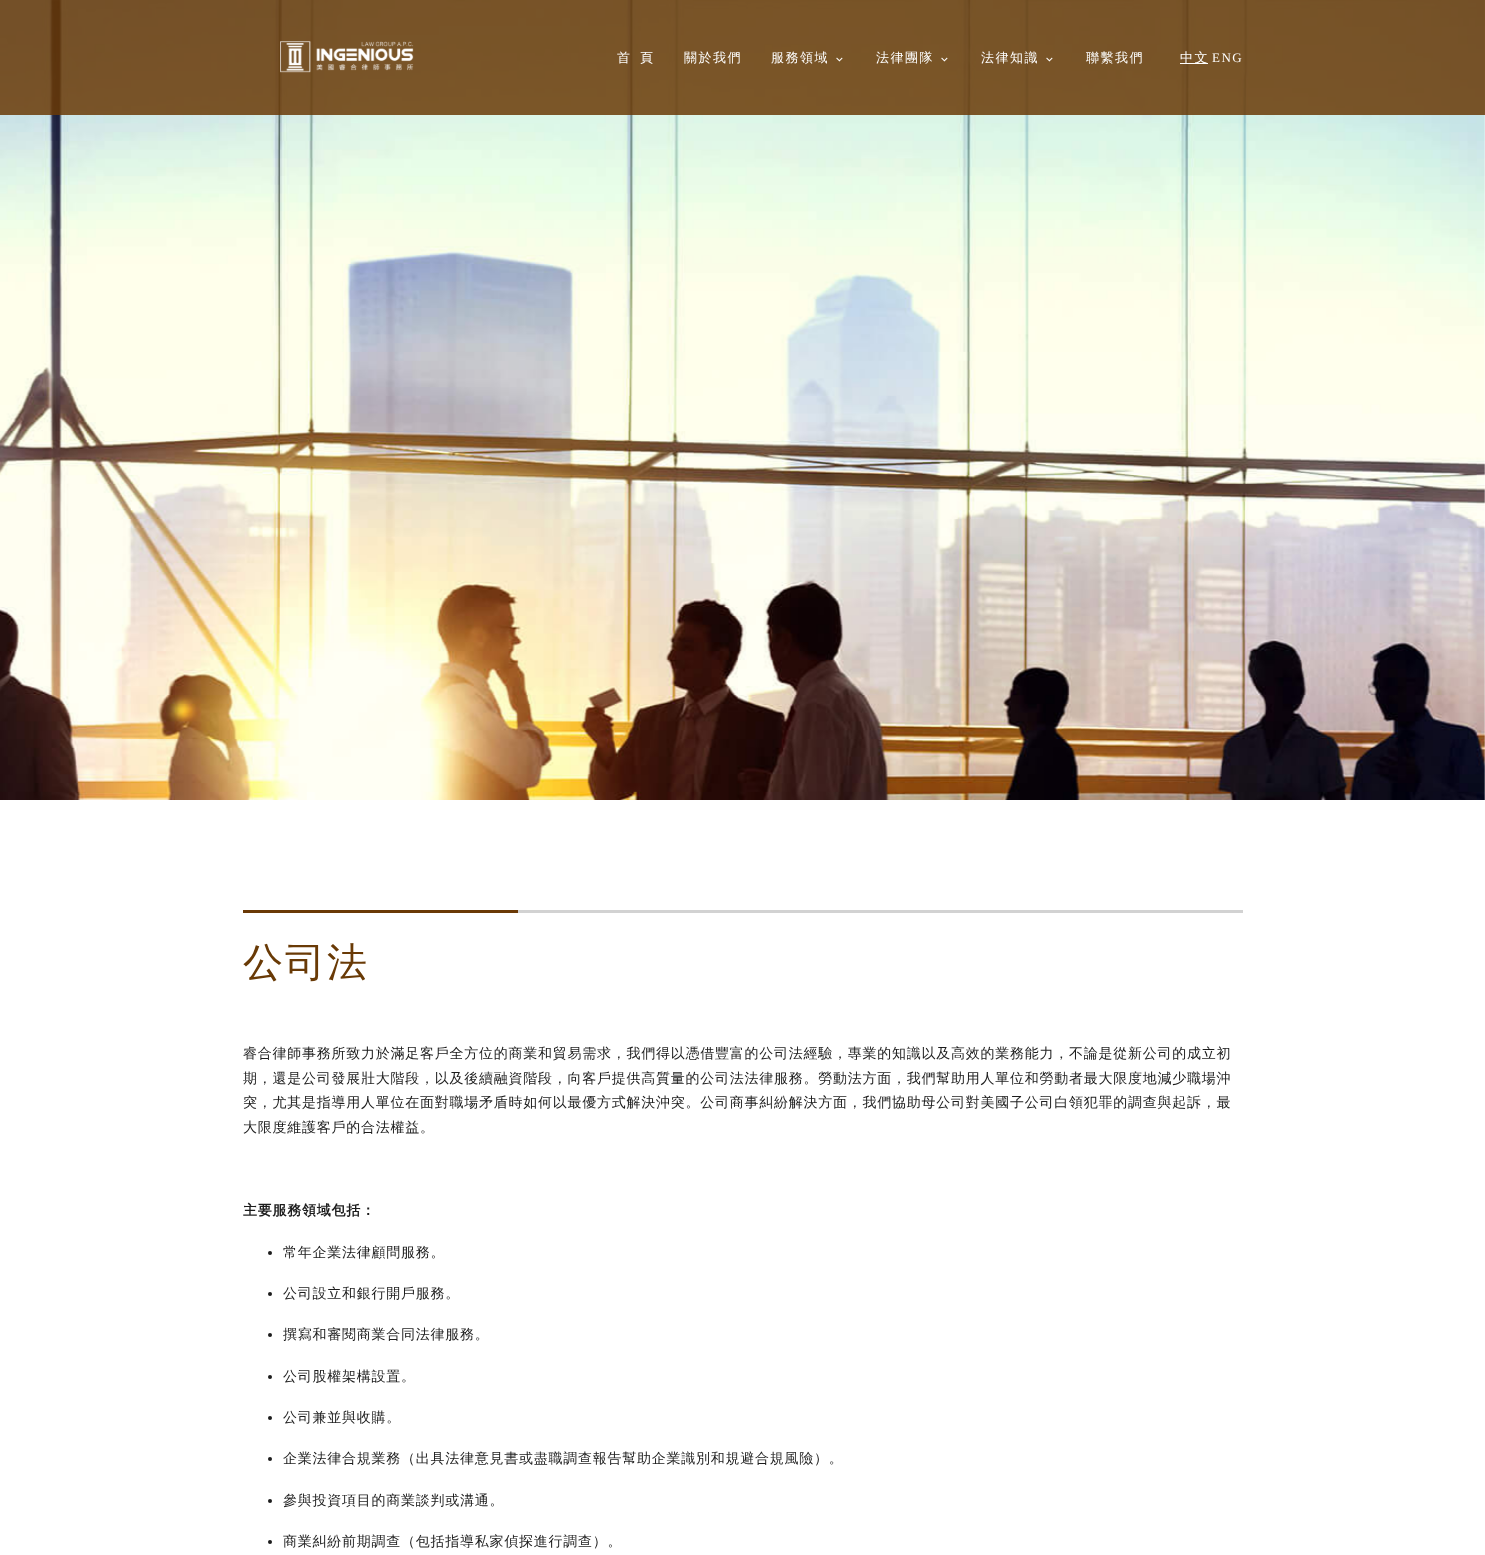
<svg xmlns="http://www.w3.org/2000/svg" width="1485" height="1555">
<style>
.a{font:500 13px WenQuanYi Zen Hei;letter-spacing:1.5px;fill:#fff}
.b{font:13px Liberation Serif;letter-spacing:1.5px;fill:#fff}
.c{font:500 40px WenQuanYi Zen Hei;letter-spacing:2px;fill:#693a06}
.d{font:500 14px WenQuanYi Zen Hei;letter-spacing:0.75px;fill:#1c1c1c}
.e{font:bold 14px WenQuanYi Zen Hei;letter-spacing:0.75px;fill:#1c1c1c}
</style>
<rect width="100%" height="100%" fill="#fff"/>
<image href="5.png" x="0" y="0" width="1485" height="800"/>
<path fill="#6a3906d9" d="M0 0h1485v115H0z"/>
<image href="1.png" x="280" y="41" width="134" height="32"/>
<image href="2.png" x="836" y="57" width="7" height="5"/>
<image href="3.png" x="941" y="57" width="7" height="5"/>
<image href="4.png" x="1046" y="57" width="7" height="5"/>
<path fill="#fff" d="M1180 63h28v1H1180z"/>
<path fill="#6a3906" d="M243 910h275v3H243z"/>
<path fill="#d2d2d2" d="M518 910h725v3H518z"/>
<circle fill="#1c1c1c" cx="270" cy="1253" r="2"/>
<circle fill="#1c1c1c" cx="270" cy="1294" r="2"/>
<circle fill="#1c1c1c" cx="270" cy="1335" r="2"/>
<circle fill="#1c1c1c" cx="270" cy="1377" r="2"/>
<circle fill="#1c1c1c" cx="270" cy="1418" r="2"/>
<circle fill="#1c1c1c" cx="270" cy="1459" r="2"/>
<circle fill="#1c1c1c" cx="270" cy="1501" r="2"/>
<circle fill="#1c1c1c" cx="270" cy="1542" r="2"/>
<text class="a" x="617" y="62">首</text>
<text class="a" x="640" y="62">頁</text>
<text class="a" x="684" y="62">關於我們</text>
<text class="a" x="771" y="62">服務領域</text>
<text class="a" x="876" y="62">法律團隊</text>
<text class="a" x="981" y="62">法律知識</text>
<text class="a" x="1086" y="62">聯繫我們</text>
<text class="a" x="1180" y="62">中文</text>
<text class="b" x="1212" y="62">ENG</text>
<text class="c" x="243" y="976">公司法</text>
<text class="d" x="243" y="1058">睿合律師事務所致力於滿足客戶全方位的商業和貿易需求，我們得以憑借豐富的公司法經驗，專業的知識以及高效的業務能力，不論是從新公司的成立初</text>
<text class="d" x="243" y="1083">期，還是公司發展壯大階段，以及後續融資階段，向客戶提供高質量的公司法法律服務。勞動法方面，我們幫助用人單位和勞動者最大限度地減少職場沖</text>
<text class="d" x="243" y="1107">突，尤其是指導用人單位在面對職場矛盾時如何以最優方式解決沖突。公司商事糾紛解決方面，我們協助母公司對美國子公司白領犯罪的調查與起訴，最</text>
<text class="d" x="243" y="1132">大限度維護客戶的合法權益。</text>
<text class="e" x="243" y="1215">主要服務領域包括：</text>
<text class="d" x="283" y="1257">常年企業法律顧問服務。</text>
<text class="d" x="283" y="1298">公司設立和銀行開戶服務。</text>
<text class="d" x="283" y="1339">撰寫和審閱商業合同法律服務。</text>
<text class="d" x="283" y="1381">公司股權架構設置。</text>
<text class="d" x="283" y="1422">公司兼並與收購。</text>
<text class="d" x="283" y="1463">企業法律合規業務（出具法律意見書或盡職調查報告幫助企業識別和規避合規風險）。</text>
<text class="d" x="283" y="1505">參與投資項目的商業談判或溝通。</text>
<text class="d" x="283" y="1546">商業糾紛前期調查（包括指導私家偵探進行調查）。</text>
</svg>
